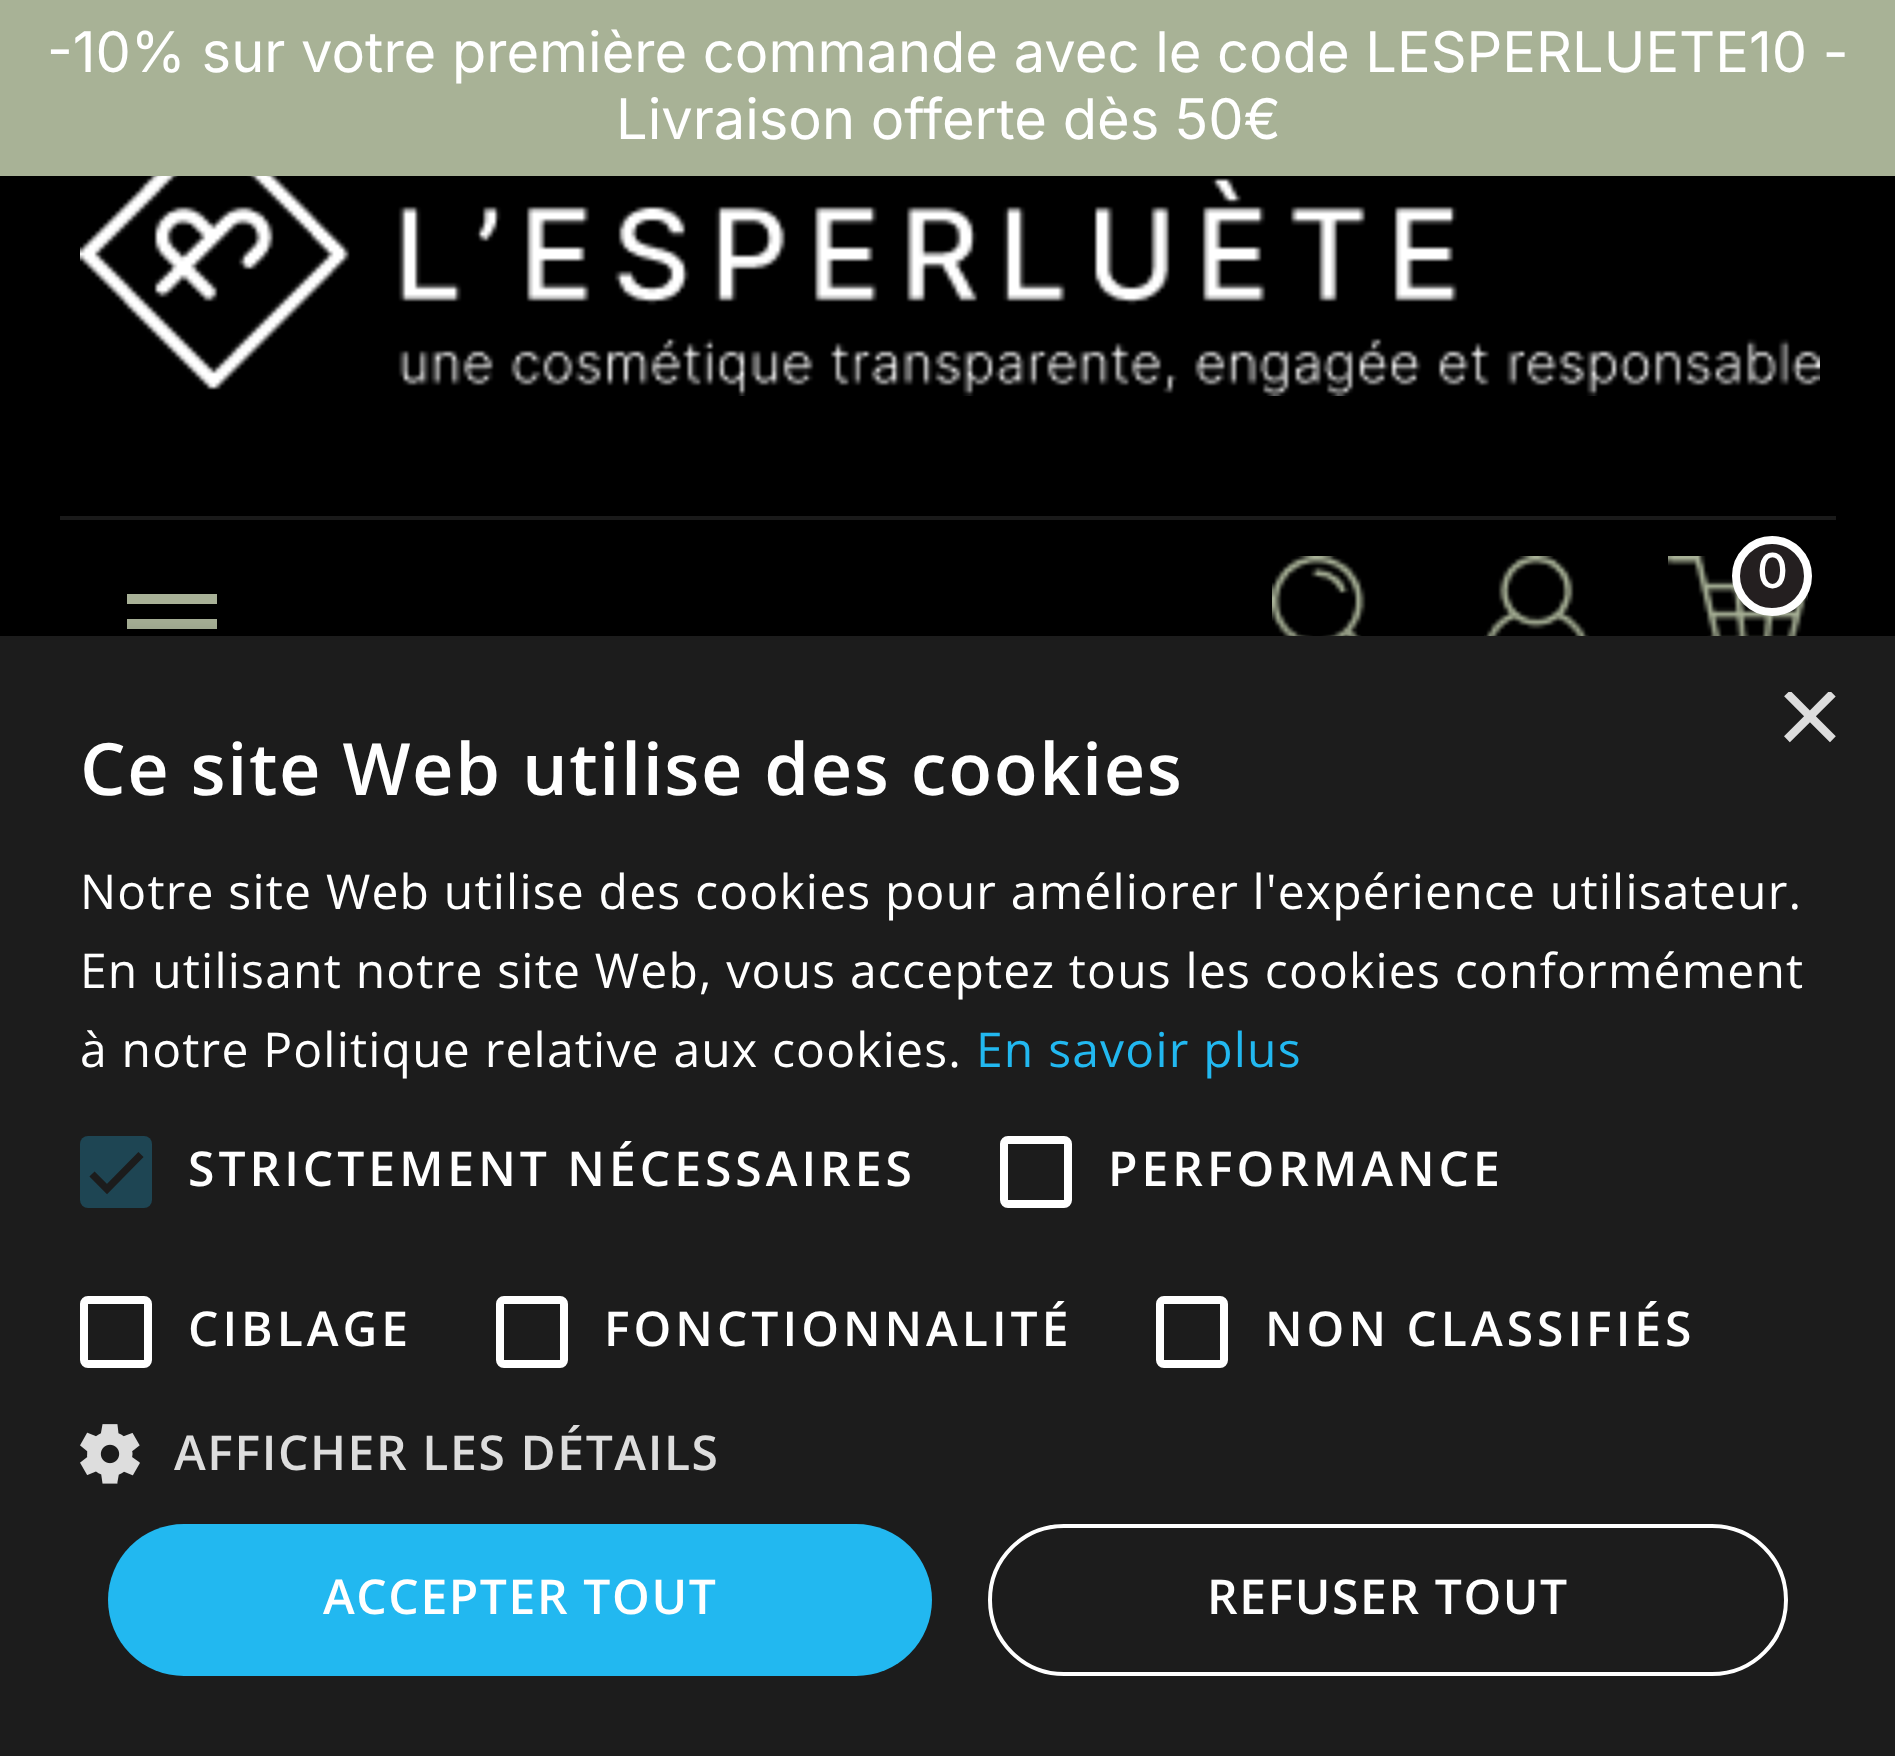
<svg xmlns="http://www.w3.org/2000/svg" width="1895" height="1756">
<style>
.a{font:56px Inter;fill:#fff}
.b{font:500 48px Inter;fill:#fff}
.c{font:116px Liberation Sans;fill:#ddd}
.d{font:600 72px Open Sans;letter-spacing:1.6px;fill:#fff}
.e{font:48px Open Sans;letter-spacing:1.2px;fill:#fff}
.f{font:48px Open Sans;letter-spacing:1.2px;fill:#22b8f0}
.g{font:600 48px Open Sans;letter-spacing:4px;fill:#fff}
.h{font:600 48px Open Sans;letter-spacing:1.6px;fill:#ddd}
.i{font:600 48px Open Sans;letter-spacing:1.6px;fill:#fff}
</style>
<defs>
<clipPath id="clip1"><path d="M1776 692h60v60H1776z"/></clipPath>
</defs>
<rect width="100%" height="100%" fill="#000"/>
<path fill="#a8b296" d="M0 0h1895v176H0z"/>
<path fill="#a8b197" d="M127 594h90v10h-90zm0 35v-10h90v10zm0 25v-10h90v10z"/>
<image href="1.png" x="1272" y="556" width="94" height="80"/>
<image href="2.png" x="80" y="176" width="1740" height="220"/>
<path fill="#1a1a1a" d="M60 516h1776v4H60z"/>
<image href="3.png" x="1484" y="556" width="106" height="80"/>
<image href="4.png" x="1668" y="556" width="140" height="80"/>
<circle fill="#241f20" stroke="#fff" stroke-width="8" cx="1772" cy="576" r="36"/>
<path fill="#00000059" filter="blur(16px)" d="M4 644h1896v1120H4z"/>
<path fill="#1c1c1c" d="M0 636h1895v1120H0z"/>
<rect fill="#1e4553" x="80" y="1136" width="72" height="72" rx="8"/>
<path fill="none" stroke="#1c1c1c" stroke-width="7.3" d="M92 1174l15 15l34-34.5"/>
<rect fill="none" stroke="#fff" stroke-width="8" x="1004" y="1140" width="64" height="64" rx="4"/>
<rect fill="none" stroke="#fff" stroke-width="8" x="84" y="1300" width="64" height="64" rx="4"/>
<rect fill="none" stroke="#fff" stroke-width="8" x="500" y="1300" width="64" height="64" rx="4"/>
<rect fill="none" stroke="#fff" stroke-width="8" x="1160" y="1300" width="64" height="64" rx="4"/>
<image href="5.png" x="80" y="1424" width="60" height="60"/>
<rect fill="#22b8f0" x="108" y="1524" width="824" height="152" rx="76"/>
<rect fill="none" stroke="#fff" stroke-width="4" x="990" y="1526" width="796" height="148" rx="74"/>
<text class="a" x="47" y="72">-10% sur votre première commande avec le code LESPERLUETE10 -</text>
<text class="a" x="616" y="139">Livraison offerte dès 50€</text>
<text class="b" x="1757" y="588">0</text>
<g clip-path="url(#clip1)">
<text class="c" x="1776" y="755">×</text>
</g>
<text class="d" x="80" y="795">Ce site Web utilise des cookies</text>
<text class="e" x="80" y="909">Notre site Web utilise des cookies pour améliorer l'expérience utilisateur.</text>
<text class="e" x="80" y="988">En utilisant notre site Web, vous acceptez tous les cookies conformément</text>
<text class="e" x="80" y="1067">à notre Politique relative aux cookies.</text>
<text class="f" x="976" y="1067">En savoir plus</text>
<text class="g" x="188" y="1186">STRICTEMENT NÉCESSAIRES</text>
<text class="g" x="1108" y="1186">PERFORMANCE</text>
<text class="g" x="188" y="1346">CIBLAGE</text>
<text class="g" x="604" y="1346">FONCTIONNALITÉ</text>
<text class="g" x="1265" y="1346">NON CLASSIFIÉS</text>
<text class="h" x="174" y="1470">AFFICHER LES DÉTAILS</text>
<text class="i" x="323" y="1614">ACCEPTER TOUT</text>
<text class="i" x="1207" y="1614">REFUSER TOUT</text>
</svg>
